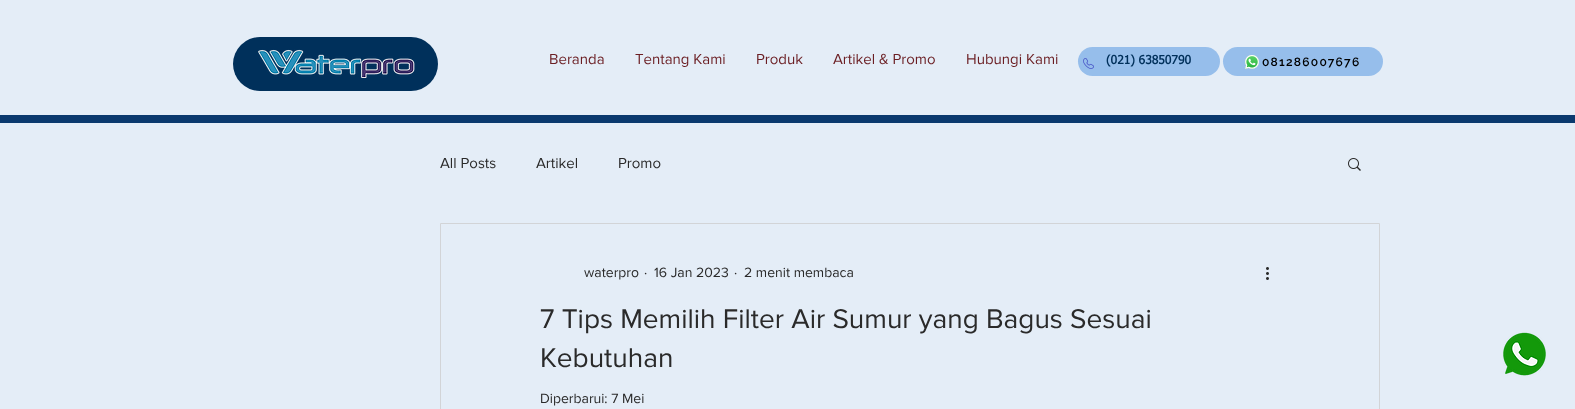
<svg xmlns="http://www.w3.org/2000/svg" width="1575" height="409">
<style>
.a{font:15px 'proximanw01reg';fill:#6b1e23}
.b{font:bold 12px tahoma;fill:#00305b}
.c{font:600 12px Raleway;letter-spacing:1.25px;fill:#000}
.d{font:15px 'proximanw01reg';fill:#2a2a2a}
.e{font:14px 'proximanw01reg';fill:#2a2a2a}
.f{font:28px 'proximanw01reg';fill:#2a2a2a}
</style>
<rect width="100%" height="100%" fill="#e4edf7"/>
<rect fill="#00305b" x="233" y="37" width="205" height="54" rx="27"/>
<image href="1.png" x="258" y="49" width="157" height="29"/>
<rect fill="#96beeb" x="1078" y="47" width="142" height="29" rx="14.5"/>
<image href="2.png" x="1083" y="58" width="11" height="11"/>
<rect fill="#96beeb" x="1223" y="47" width="160" height="29" rx="14.5"/>
<image href="3.png" x="1245" y="55" width="14" height="14"/>
<path fill="#0a396e" d="M0 115h1575v8H0z"/>
<image href="4.png" x="1348" y="158" width="13" height="13"/>
<path fill="none" stroke="#d2d4d7" d="M440.5 223.5h939v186H440.5z"/>
<image href="5.png" x="1266" y="267" width="3" height="13"/>
<image href="6.png" x="1503" y="332" width="43" height="44"/>
<text class="a" x="549" y="64">Beranda</text>
<text class="a" x="635" y="64">Tentang Kami</text>
<text class="a" x="756" y="64">Produk</text>
<text class="a" x="833" y="64">Artikel &amp; Promo</text>
<text class="a" x="966" y="64">Hubungi Kami</text>
<text class="b" x="1106" y="64">(021) 63850790</text>
<text class="c" x="1262" y="66">081286007676</text>
<text class="d" x="440" y="168">All Posts</text>
<text class="d" x="536" y="168">Artikel</text>
<text class="d" x="618" y="168">Promo</text>
<text class="e" x="584" y="277">waterpro</text>
<text class="e" x="644" y="277">·</text>
<text class="e" x="654" y="277">16 Jan 2023</text>
<text class="e" x="734" y="277">·</text>
<text class="e" x="744" y="277">2 menit membaca</text>
<text class="f" x="540" y="328">7 Tips Memilih Filter Air Sumur yang Bagus Sesuai</text>
<text class="f" x="540" y="367">Kebutuhan</text>
<text class="e" x="540" y="403">Diperbarui: 7 Mei</text>
</svg>
